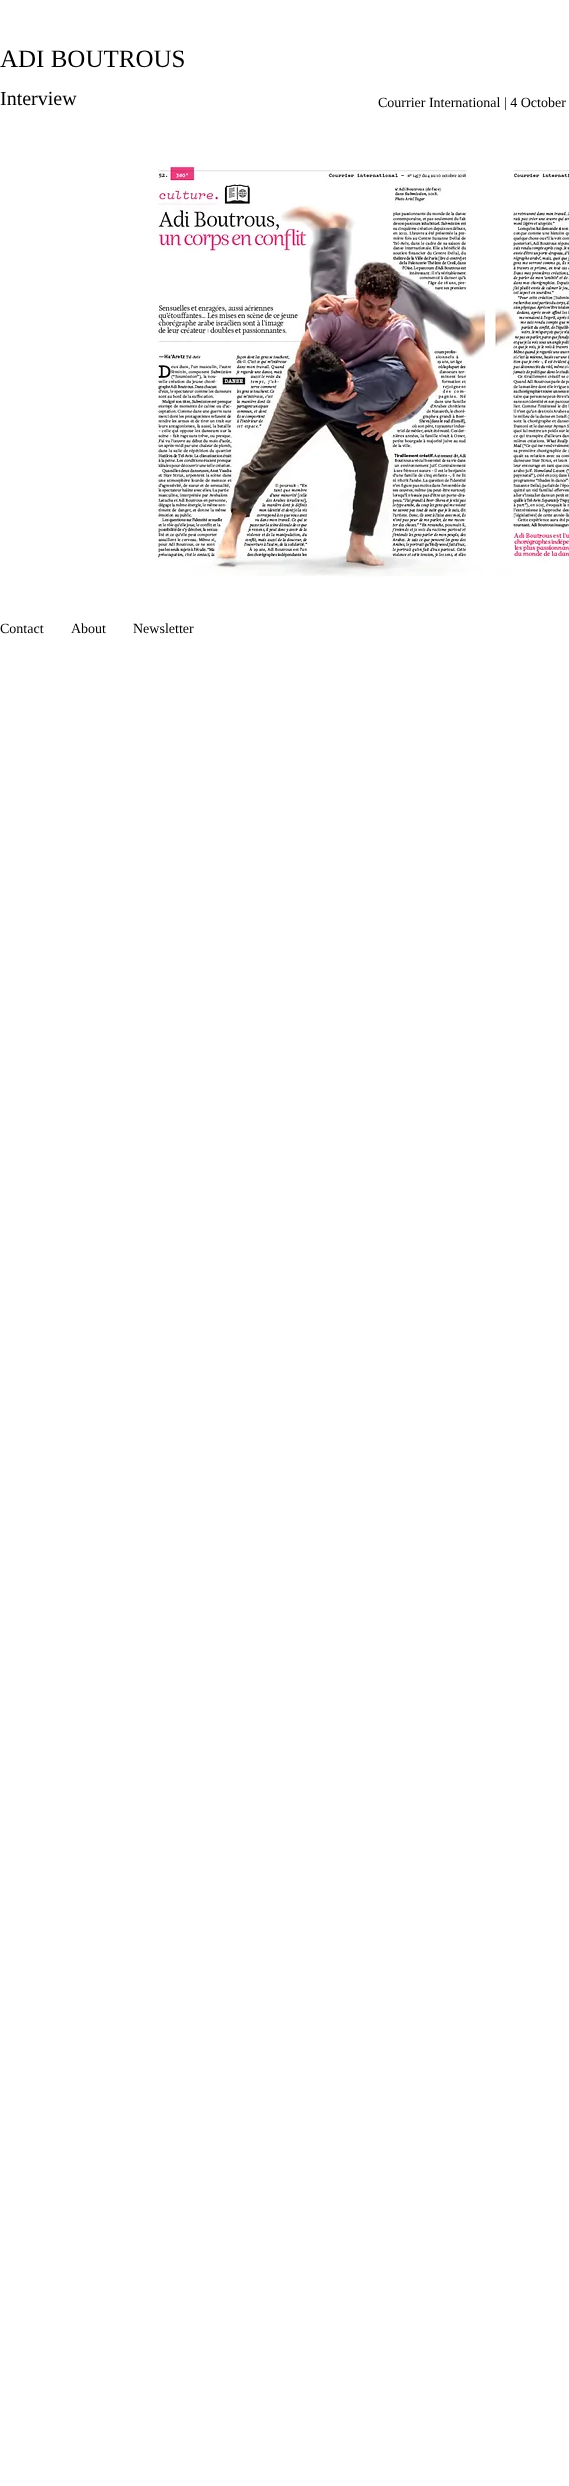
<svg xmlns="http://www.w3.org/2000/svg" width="569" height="2486">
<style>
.a{font:25px Liberation Serif;fill:#000}
.b{font:20px Liberation Serif;fill:#000}
.c{font:14px Liberation Serif;fill:#000}
</style>
<rect width="100%" height="100%" fill="#fff"/>
<image href="1.png" x="153" y="164" width="416" height="413"/>
<text class="a" x="0" y="67">ADI BOUTROUS</text>
<text class="b" x="0" y="105">Interview</text>
<text class="c" x="378" y="107">Courrier International | 4 October</text>
<text class="c" x="0" y="633">Contact</text>
<text class="c" x="71" y="633">About</text>
<text class="c" x="133" y="633">Newsletter</text>
</svg>
